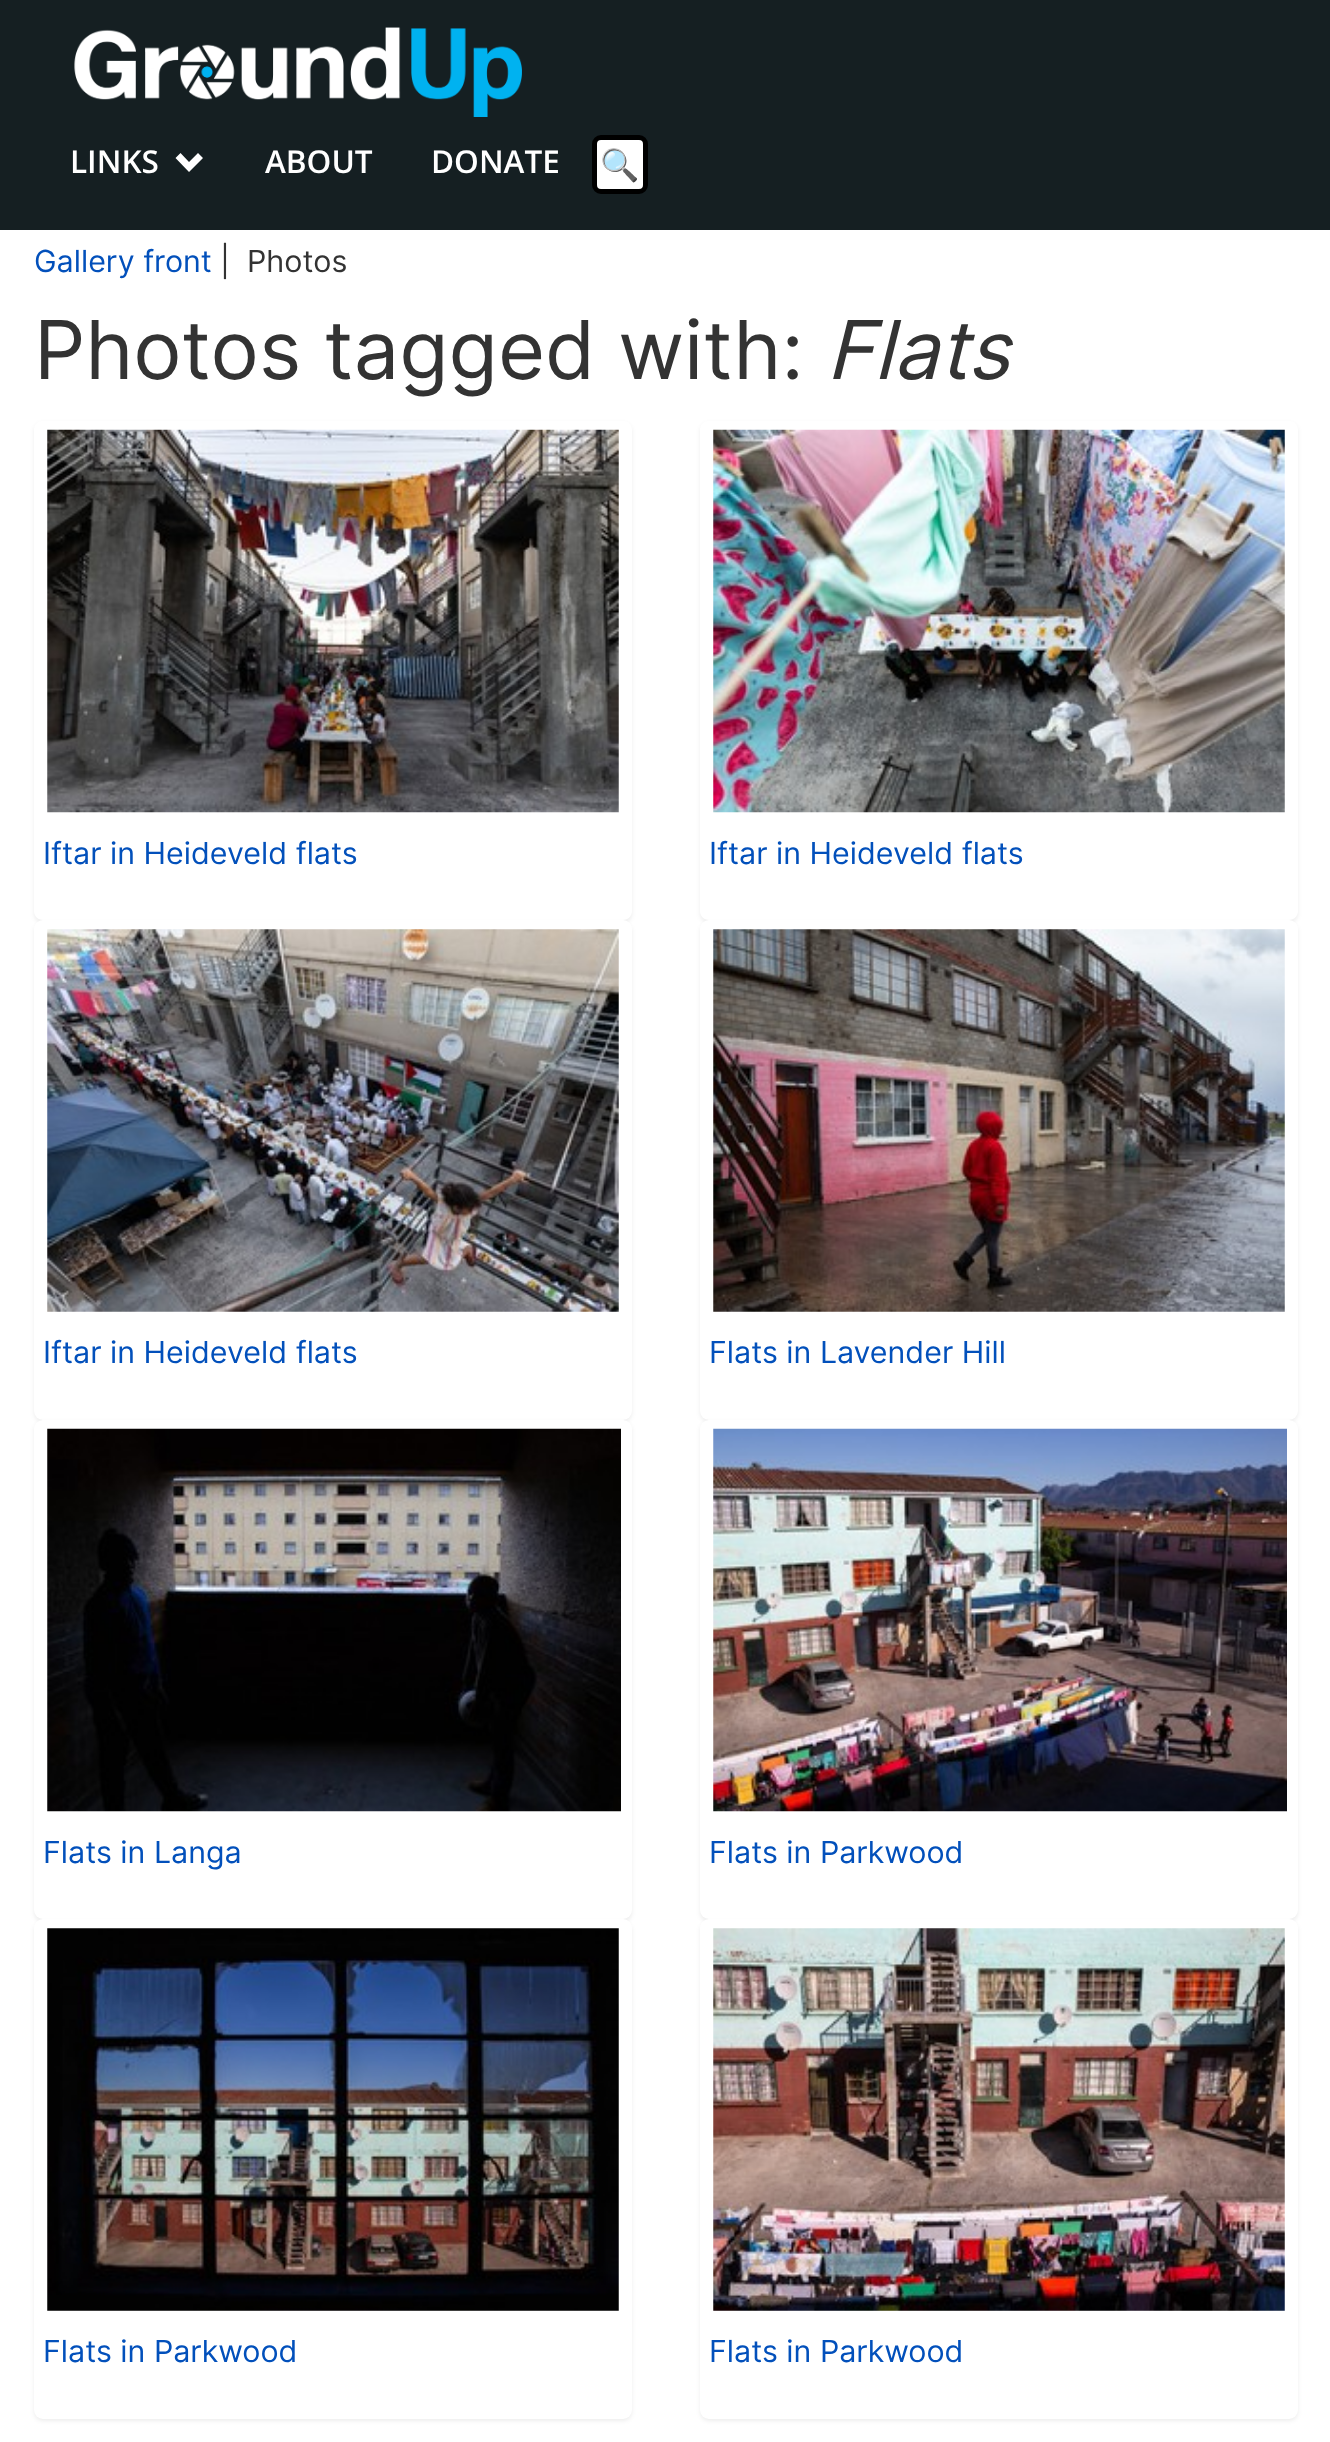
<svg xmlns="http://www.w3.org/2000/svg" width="1330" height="2442">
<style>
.a{font:600 31.5px Open Sans;fill:#fff}
.b{font:bold 31.5px Noto Color Emoji;fill:#000}
.c{font:30.4px Inter;fill:#0250bb}
.d{font:30.4px Inter;fill:#333}
.e{font:81px Inter;fill:#333}
.f{font:italic 81px Inter;fill:#333}
</style>
<defs>
<clipPath id="clip1"><path d="M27 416h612v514h-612zm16 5h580c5 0 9 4 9 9v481c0 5-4 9-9 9h-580c-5 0-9-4-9-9v-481c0-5 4-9 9-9z" clip-rule="evenodd"/></clipPath>
<clipPath id="clip2"><path d="M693 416h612v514h-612zm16 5h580c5 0 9 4 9 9v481c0 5-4 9-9 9h-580c-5 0-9-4-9-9v-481c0-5 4-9 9-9z" clip-rule="evenodd"/></clipPath>
</defs>
<rect width="100%" height="100%" fill="#fff"/>
<path fill="#151f22" d="M0 0h1330v230H0z"/>
<image href="1.png" x="74" y="27" width="448" height="90"/>
<path fill="#fff" d="M203 158l-14 14l-13.5-14l5-5l8.5 9l9-9z"/>
<rect fill="#fff" stroke="#000" stroke-width="5" x="594.5" y="137.5" width="51" height="54" rx="6.5"/>
<g clip-path="url(#clip1)">
<rect fill="#00000012" filter="blur(2px)" x="34" y="423" width="598" height="500" rx="9"/>
</g>
<image href="2.png" x="47" y="429" width="572" height="384"/>
<g clip-path="url(#clip2)">
<rect fill="#00000012" filter="blur(2px)" x="700" y="423" width="598" height="500" rx="9"/>
</g>
<image href="3.png" x="713" y="429" width="572" height="384"/>
<rect fill="#00000012" filter="blur(2px)" x="34" y="923" width="598" height="499" rx="9"/>
<rect fill="#fff" x="34" y="920" width="598" height="500" rx="9"/>
<image href="4.png" x="47" y="929" width="572" height="383"/>
<rect fill="#00000012" filter="blur(2px)" x="700" y="923" width="598" height="499" rx="9"/>
<rect fill="#fff" x="700" y="920" width="598" height="500" rx="9"/>
<image href="5.png" x="713" y="929" width="572" height="383"/>
<rect fill="#00000012" filter="blur(2px)" x="34" y="1422" width="598" height="500" rx="9"/>
<rect fill="#fff" x="34" y="1420" width="598" height="499" rx="9"/>
<image href="6.png" x="47" y="1428" width="574" height="384"/>
<rect fill="#00000012" filter="blur(2px)" x="700" y="1422" width="598" height="500" rx="9"/>
<rect fill="#fff" x="700" y="1420" width="598" height="499" rx="9"/>
<image href="7.png" x="713" y="1428" width="574" height="384"/>
<rect fill="#00000012" filter="blur(2px)" x="34" y="1922" width="598" height="499" rx="9"/>
<rect fill="#fff" x="34" y="1919" width="598" height="500" rx="9"/>
<image href="8.png" x="47" y="1928" width="572" height="383"/>
<rect fill="#00000012" filter="blur(2px)" x="700" y="1922" width="598" height="499" rx="9"/>
<rect fill="#fff" x="700" y="1919" width="598" height="500" rx="9"/>
<image href="9.png" x="713" y="1928" width="572" height="383"/>
<text class="a" x="70" y="173">LINKS</text>
<text class="a" x="265" y="173">ABOUT</text>
<text class="a" x="431" y="173">DONATE</text>
<text class="b" x="600" y="176">🔍</text>
<text class="c" x="34" y="272">Gallery front</text>
<text class="d" x="220" y="272">|</text>
<text class="d" x="247" y="272">Photos</text>
<text class="e" x="34" y="379">Photos tagged with:</text>
<text class="f" x="826" y="379">Flats</text>
<text class="c" x="43" y="864">Iftar in Heideveld flats</text>
<text class="c" x="709" y="864">Iftar in Heideveld flats</text>
<text class="c" x="43" y="1363">Iftar in Heideveld flats</text>
<text class="c" x="709" y="1363">Flats in Lavender Hill</text>
<text class="c" x="43" y="1863">Flats in Langa</text>
<text class="c" x="709" y="1863">Flats in Parkwood</text>
<text class="c" x="43" y="2362">Flats in Parkwood</text>
<text class="c" x="709" y="2362">Flats in Parkwood</text>
</svg>
